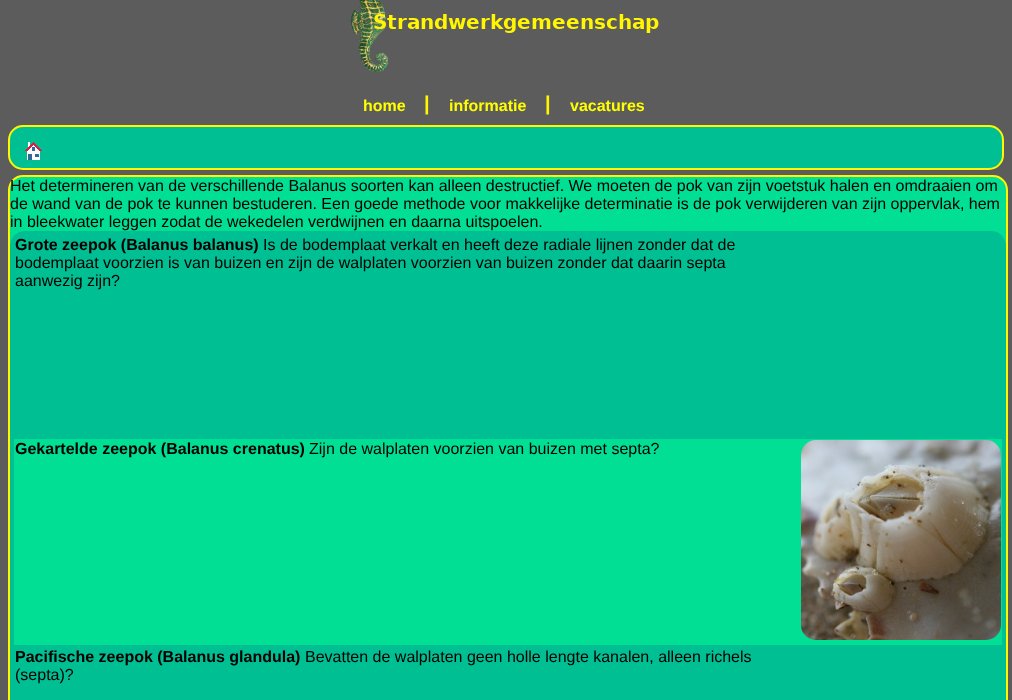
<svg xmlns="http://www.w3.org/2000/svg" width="1012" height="700">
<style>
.a{font:bold 16px Liberation Sans;fill:#ff0}
.b{font:bold 20px Liberation Sans;fill:#fff600}
.c{font:16px Liberation Sans;fill:#000}
.d{font:bold 16px Liberation Sans;fill:#000}
</style>
<rect width="100%" height="100%" fill="#5c5c5c"/>
<image href="1.png" x="350" y="0" width="309" height="72"/>
<rect fill="#00bf93" stroke="#fff600" stroke-width="2" x="9" y="126" width="994" height="43" rx="14"/>
<image href="2.png" x="25" y="142" width="17" height="18"/>
<rect fill="#00df93" stroke="#fff600" stroke-width="2" x="9" y="176" width="998" height="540" rx="14"/>
<rect fill="#00bf93" x="10" y="231" width="996" height="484" rx="15"/>
<path fill="#00bf93" d="M14 235h988v1H14z"/>
<path fill="#00df93" d="M14 439h988v206H14z"/>
<image href="3.png" x="801" y="440" width="200" height="200"/>
<text class="a" x="363" y="111">home</text>
<text class="b" x="424" y="110">|</text>
<text class="a" x="449" y="111">informatie</text>
<text class="b" x="545" y="110">|</text>
<text class="a" x="570" y="111">vacatures</text>
<text class="c" x="10" y="191">Het determineren van de verschillende Balanus soorten kan alleen destructief. We moeten de pok van zijn voetstuk halen en omdraaien om</text>
<text class="c" x="10" y="209">de wand van de pok te kunnen bestuderen. Een goede methode voor makkelijke determinatie is de pok verwijderen van zijn oppervlak, hem</text>
<text class="c" x="10" y="227">in bleekwater leggen zodat de wekedelen verdwijnen en daarna uitspoelen.</text>
<text class="d" x="15" y="250">Grote zeepok (Balanus balanus)</text>
<text class="c" x="263" y="250">Is de bodemplaat verkalt en heeft deze radiale lijnen zonder dat de</text>
<text class="c" x="15" y="268">bodemplaat voorzien is van buizen en zijn de walplaten voorzien van buizen zonder dat daarin septa</text>
<text class="c" x="15" y="286">aanwezig zijn?</text>
<text class="d" x="15" y="454">Gekartelde zeepok (Balanus crenatus)</text>
<text class="c" x="309" y="454">Zijn de walplaten voorzien van buizen met septa?</text>
<text class="d" x="15" y="662">Pacifische zeepok (Balanus glandula)</text>
<text class="c" x="305" y="662">Bevatten de walplaten geen holle lengte kanalen, alleen richels</text>
<text class="c" x="15" y="680">(septa)?</text>
</svg>
